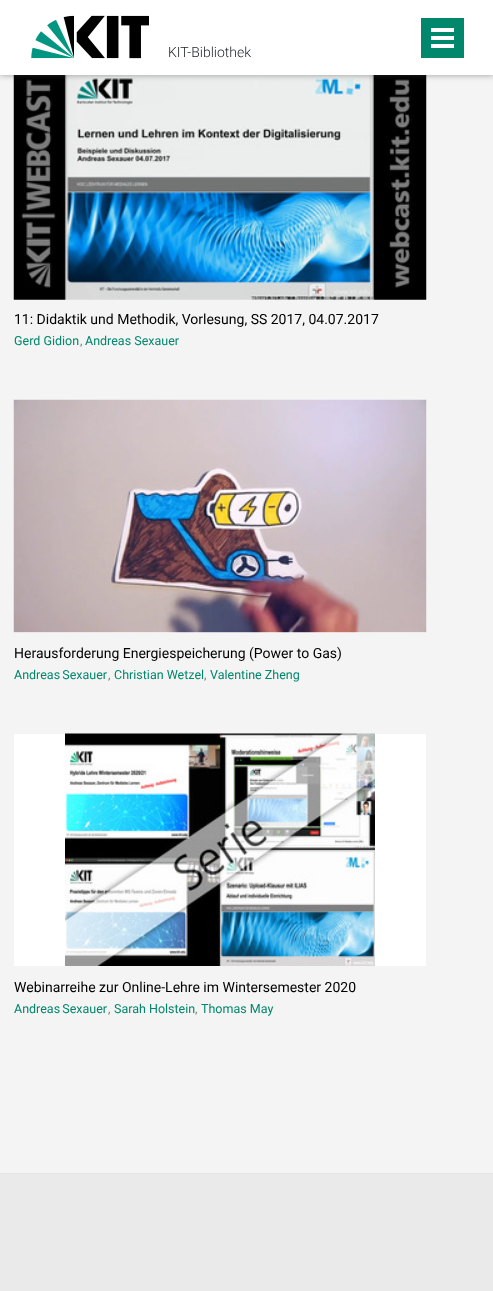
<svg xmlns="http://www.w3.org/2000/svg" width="493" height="1291">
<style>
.a{font:300 14px Roboto;fill:#212529}
.b{font:14px Roboto;fill:#000}
.c{font:12.5px Roboto;fill:#00876c}
.d{font:12.5px Roboto;fill:#777}
</style>
<rect width="100%" height="100%" fill="#f4f4f4"/>
<image href="2.png" x="13" y="75" width="414" height="225"/>
<path fill="#40404080" filter="blur(3px)" d="M0 0h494v75H0z"/>
<path fill="#fff" d="M0 0h493v75H0z"/>
<image href="1.png" x="31" y="15" width="118" height="44"/>
<path fill="#00876c" d="M421 18h43v40H421z"/>
<path fill="#fff" d="M431 44h23v4H431z"/>
<path fill="#fff" d="M431 36h23v4H431z"/>
<path fill="#fff" d="M431 28h23v4H431z"/>
<path fill="#fff" d="M14 632h412v1H14z"/>
<image href="3.png" x="13" y="399" width="414" height="234"/>
<path fill="#fff" d="M14 734h412v232H14z"/>
<image href="4.png" x="65" y="733" width="310" height="233"/>
<path fill="#eaeaea" d="M0 1174h493v117H0z"/>
<path fill="#e4e4e4" d="M0 1173h493v1H0z"/>
<text class="a" x="168" y="57">KIT-Bibliothek</text>
<text class="b" x="14" y="324">11: Didaktik und Methodik, Vorlesung, SS 2017, 04.07.2017</text>
<text class="c" x="14" y="345">Gerd Gidion</text>
<text class="d" x="80" y="345">,</text>
<text class="c" x="85" y="345">Andreas Sexauer</text>
<text class="b" x="14" y="658">Herausforderung Energiespeicherung (Power to Gas)</text>
<text class="c" x="14" y="679" word-spacing="-1">Andreas Sexauer</text>
<text class="d" x="108" y="679">,</text>
<text class="c" x="114" y="679">Christian Wetzel</text>
<text class="d" x="204" y="679">,</text>
<text class="c" x="210" y="679">Valentine Zheng</text>
<text class="b" x="14" y="992">Webinarreihe zur Online-Lehre im Wintersemester 2020</text>
<text class="c" x="14" y="1013" word-spacing="-1">Andreas Sexauer</text>
<text class="d" x="108" y="1013">,</text>
<text class="c" x="114" y="1013">Sarah Holstein</text>
<text class="d" x="195" y="1013">,</text>
<text class="c" x="201" y="1013">Thomas May</text>
</svg>
